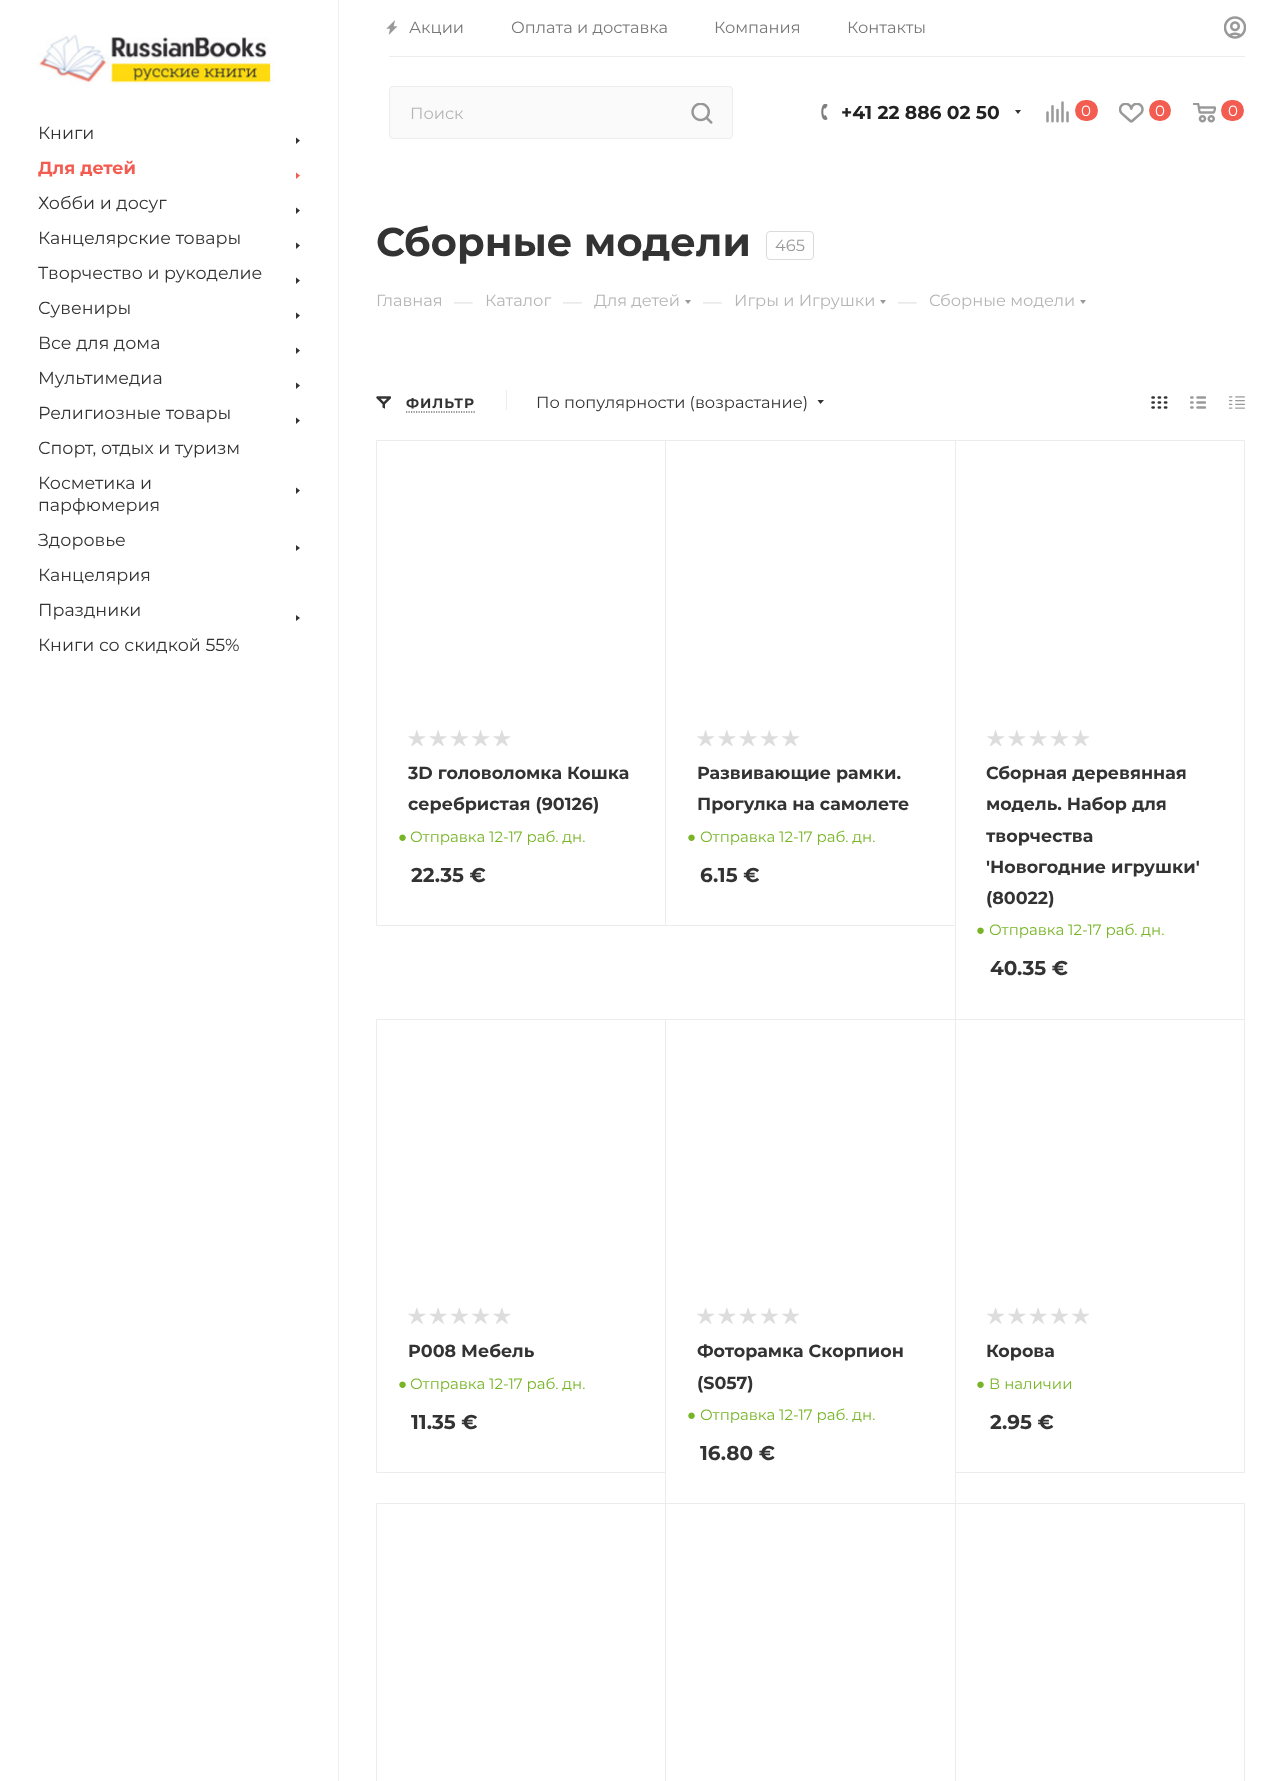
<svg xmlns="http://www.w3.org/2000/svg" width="1282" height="1781">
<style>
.a{font:16.25px Montserrat;fill:#777}
.b{font:16.25px Montserrat;fill:#b6b5b5}
.c{font:bold 18.75px Montserrat;fill:#222}
.d{font:15px Montserrat;fill:#fff}
.e{font:17.5px Montserrat;fill:#333}
.f{font:bold 17.5px Montserrat;fill:#f35c50}
.g{font:bold 40px Montserrat;fill:#333}
.h{font:16.25px Montserrat;fill:#999}
.i{font:18.75px Montserrat;fill:#ddd}
.j{font:bold 13.75px Montserrat;letter-spacing:1px;fill:#333}
.k{font:16.25px Montserrat;fill:#333}
.l{font:bold 17.5px Montserrat;fill:#333}
.m{font:15px Liberation Sans;fill:#77b527}
.n{font:15px Montserrat;fill:#77b527}
.o{font:bold 20px Montserrat;fill:#333}
</style>
<rect width="100%" height="100%" fill="#fff"/>
<image href="1.png" x="386" y="20" width="12" height="15"/>
<image href="2.png" x="1224" y="16" width="22" height="23"/>
<path fill="#ededed" d="M389 56h856v1H389z"/>
<rect fill="#fafafa" stroke="#ececec" x="389.5" y="86.5" width="343" height="52" rx="3.5"/>
<image href="3.png" x="691" y="103" width="22" height="21"/>
<image href="4.png" x="821" y="104" width="7" height="16"/>
<path fill="#333" fill-rule="evenodd" d="M1015 110h6l-3 4z"/>
<image href="5.png" x="1046" y="101" width="23" height="22"/>
<rect fill="#f35c50" x="1075" y="100" width="23" height="21" rx="10.5"/>
<image href="6.png" x="1119" y="103" width="25" height="20"/>
<rect fill="#f35c50" x="1149" y="100" width="22" height="21" rx="10.5"/>
<image href="7.png" x="1193" y="103" width="23" height="20"/>
<rect fill="#f35c50" x="1221" y="100" width="23" height="21" rx="10.5"/>
<path fill="#eee" d="M338 0h1v1781H338z"/>
<image href="8.png" x="37" y="34" width="238" height="51"/>
<path fill="#333" fill-rule="evenodd" d="M296 144v-6.5l4 3z"/>
<path fill="#f35c50" fill-rule="evenodd" d="M296 179v-6.5l4 3z"/>
<path fill="#333" fill-rule="evenodd" d="M296 214v-6.5l4 3z"/>
<path fill="#333" fill-rule="evenodd" d="M296 249v-6.5l4 3z"/>
<path fill="#333" fill-rule="evenodd" d="M296 284v-6.5l4 3z"/>
<path fill="#333" fill-rule="evenodd" d="M296 319v-6.5l4 3z"/>
<path fill="#333" fill-rule="evenodd" d="M296 354v-6.5l4 3z"/>
<path fill="#333" fill-rule="evenodd" d="M296 389v-6.5l4 3z"/>
<path fill="#333" fill-rule="evenodd" d="M296 424v-6.5l4 3z"/>
<path fill="#333" fill-rule="evenodd" d="M296 494v-6.5l4 3z"/>
<path fill="#333" fill-rule="evenodd" d="M296 551v-6l4 3z"/>
<path fill="#333" fill-rule="evenodd" d="M296 621v-6l4 3z"/>
<rect fill="none" stroke="#dbdbdb" x="766.5" y="231.5" width="47" height="28" rx="3.5"/>
<path fill="#999" fill-rule="evenodd" d="M685 300h6l-3 4z"/>
<path fill="#999" fill-rule="evenodd" d="M880 300h6l-3 4z"/>
<path fill="#999" fill-rule="evenodd" d="M1080 300h6l-3 4z"/>
<image href="9.png" x="376" y="396" width="15" height="13"/>
<path fill="none" stroke="#333" stroke-width="1.2" stroke-dasharray="1.25 1.25" d="M406 412h69"/>
<path fill="#ececec" d="M506 390h1v20H506z"/>
<path fill="#333" fill-rule="evenodd" d="M817.5 400h6.5l-3.5 4z"/>
<image href="10.png" x="1151" y="396" width="17" height="13"/>
<image href="11.png" x="1190" y="396" width="16" height="13"/>
<image href="12.png" x="1229" y="396" width="16" height="13"/>
<path fill="none" stroke="#ececec" d="M376.5 440.5h289v485H376.5z"/>
<image href="13.png" x="408" y="730" width="18" height="16"/>
<image href="14.png" x="429" y="730" width="18" height="16"/>
<image href="15.png" x="450" y="730" width="18" height="16"/>
<image href="16.png" x="472" y="730" width="18" height="16"/>
<image href="13.png" x="493" y="730" width="18" height="16"/>
<path fill="none" stroke="#ececec" d="M665.5 440.5h290v485H665.5z"/>
<image href="16.png" x="697" y="730" width="18" height="16"/>
<image href="13.png" x="718" y="730" width="18" height="16"/>
<image href="14.png" x="739" y="730" width="18" height="16"/>
<image href="15.png" x="760" y="730" width="18" height="16"/>
<image href="16.png" x="782" y="730" width="18" height="16"/>
<path fill="none" stroke="#ececec" d="M955.5 440.5h289v579H955.5z"/>
<image href="16.png" x="987" y="730" width="18" height="16"/>
<image href="13.png" x="1008" y="730" width="18" height="16"/>
<image href="14.png" x="1029" y="730" width="18" height="16"/>
<image href="15.png" x="1050" y="730" width="18" height="16"/>
<image href="16.png" x="1072" y="730" width="18" height="16"/>
<path fill="none" stroke="#ececec" d="M376.5 1019.5h289v453H376.5z"/>
<image href="17.png" x="408" y="1308" width="18" height="16"/>
<image href="18.png" x="429" y="1308" width="18" height="16"/>
<image href="19.png" x="451" y="1308" width="17" height="16"/>
<image href="20.png" x="472" y="1308" width="17" height="16"/>
<image href="17.png" x="493" y="1308" width="18" height="16"/>
<path fill="none" stroke="#ececec" d="M665.5 1019.5h290v484H665.5z"/>
<image href="20.png" x="697" y="1308" width="17" height="16"/>
<image href="17.png" x="718" y="1308" width="18" height="16"/>
<image href="18.png" x="739" y="1308" width="18" height="16"/>
<image href="19.png" x="761" y="1308" width="17" height="16"/>
<image href="20.png" x="782" y="1308" width="17" height="16"/>
<path fill="none" stroke="#ececec" d="M955.5 1019.5h289v453H955.5z"/>
<image href="20.png" x="987" y="1308" width="17" height="16"/>
<image href="17.png" x="1008" y="1308" width="18" height="16"/>
<image href="18.png" x="1029" y="1308" width="18" height="16"/>
<image href="19.png" x="1051" y="1308" width="17" height="16"/>
<image href="20.png" x="1072" y="1308" width="17" height="16"/>
<path fill="none" stroke="#ececec" d="M376.5 1503.5h289v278H376.5z"/>
<path fill="none" stroke="#ececec" d="M665.5 1503.5h290v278H665.5z"/>
<path fill="none" stroke="#ececec" d="M955.5 1503.5h289v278H955.5z"/>
<text class="a" x="409" y="33">Акции</text>
<text class="a" x="511" y="33">Оплата и доставка</text>
<text class="a" x="714" y="33">Компания</text>
<text class="a" x="847" y="33">Контакты</text>
<text class="b" x="410" y="119">Поиск</text>
<text class="c" x="841" y="119">+41 22 886 02 50</text>
<text class="d" x="1081" y="116">0</text>
<text class="d" x="1155" y="116">0</text>
<text class="d" x="1228" y="116">0</text>
<text class="e" x="38" y="139">Книги</text>
<text class="f" x="38" y="174">Для детей</text>
<text class="e" x="38" y="209">Хобби и досуг</text>
<text class="e" x="38" y="244">Канцелярские товары</text>
<text class="e" x="38" y="279">Творчество и рукоделие</text>
<text class="e" x="38" y="314">Сувениры</text>
<text class="e" x="38" y="349">Все для дома</text>
<text class="e" x="38" y="384">Мультимедиа</text>
<text class="e" x="38" y="419">Религиозные товары</text>
<text class="e" x="38" y="454">Спорт, отдых и туризм</text>
<text class="e" x="38" y="489">Косметика и</text>
<text class="e" x="38" y="511">парфюмерия</text>
<text class="e" x="38" y="546">Здоровье</text>
<text class="e" x="38" y="581">Канцелярия</text>
<text class="e" x="38" y="616">Праздники</text>
<text class="e" x="38" y="651">Книги со скидкой 55%</text>
<text class="g" x="376" y="256">Сборные модели</text>
<text class="h" x="775" y="251">465</text>
<text class="b" x="376" y="306">Главная</text>
<text class="i" x="454" y="308">—</text>
<text class="b" x="485" y="306">Каталог</text>
<text class="i" x="563" y="308">—</text>
<text class="b" x="594" y="306">Для детей</text>
<text class="i" x="703" y="308">—</text>
<text class="b" x="734" y="306">Игры и Игрушки</text>
<text class="i" x="898" y="308">—</text>
<text class="b" x="929" y="306">Сборные модели</text>
<text class="j" x="406" y="408">ФИЛЬТР</text>
<text class="k" x="536" y="408">По популярности (возрастание)</text>
<text class="l" x="408" y="779">3D головоломка Кошка</text>
<text class="l" x="408" y="810">серебристая (90126)</text>
<text class="m" x="398" y="842">●</text>
<text class="n" x="410" y="842">Отправка 12-17 раб. дн.</text>
<text class="o" x="411" y="882">22.35 €</text>
<text class="l" x="697" y="779">Развивающие рамки.</text>
<text class="l" x="697" y="810">Прогулка на самолете</text>
<text class="m" x="687" y="842">●</text>
<text class="n" x="700" y="842">Отправка 12-17 раб. дн.</text>
<text class="o" x="700" y="882">6.15 €</text>
<text class="l" x="986" y="779">Сборная деревянная</text>
<text class="l" x="986" y="810">модель. Набор для</text>
<text class="l" x="986" y="842">творчества</text>
<text class="l" x="986" y="873">'Новогодние игрушки'</text>
<text class="l" x="986" y="904">(80022)</text>
<text class="m" x="976" y="935">●</text>
<text class="n" x="989" y="935">Отправка 12-17 раб. дн.</text>
<text class="o" x="990" y="975">40.35 €</text>
<text class="l" x="408" y="1357">P008 Мебель</text>
<text class="m" x="398" y="1389">●</text>
<text class="n" x="410" y="1389">Отправка 12-17 раб. дн.</text>
<text class="o" x="411" y="1429">11.35 €</text>
<text class="l" x="697" y="1357">Фоторамка Скорпион</text>
<text class="l" x="697" y="1389">(S057)</text>
<text class="m" x="687" y="1420">●</text>
<text class="n" x="700" y="1420">Отправка 12-17 раб. дн.</text>
<text class="o" x="700" y="1460">16.80 €</text>
<text class="l" x="986" y="1357">Корова</text>
<text class="m" x="976" y="1389">●</text>
<text class="n" x="989" y="1389">В наличии</text>
<text class="o" x="990" y="1429">2.95 €</text>
</svg>
